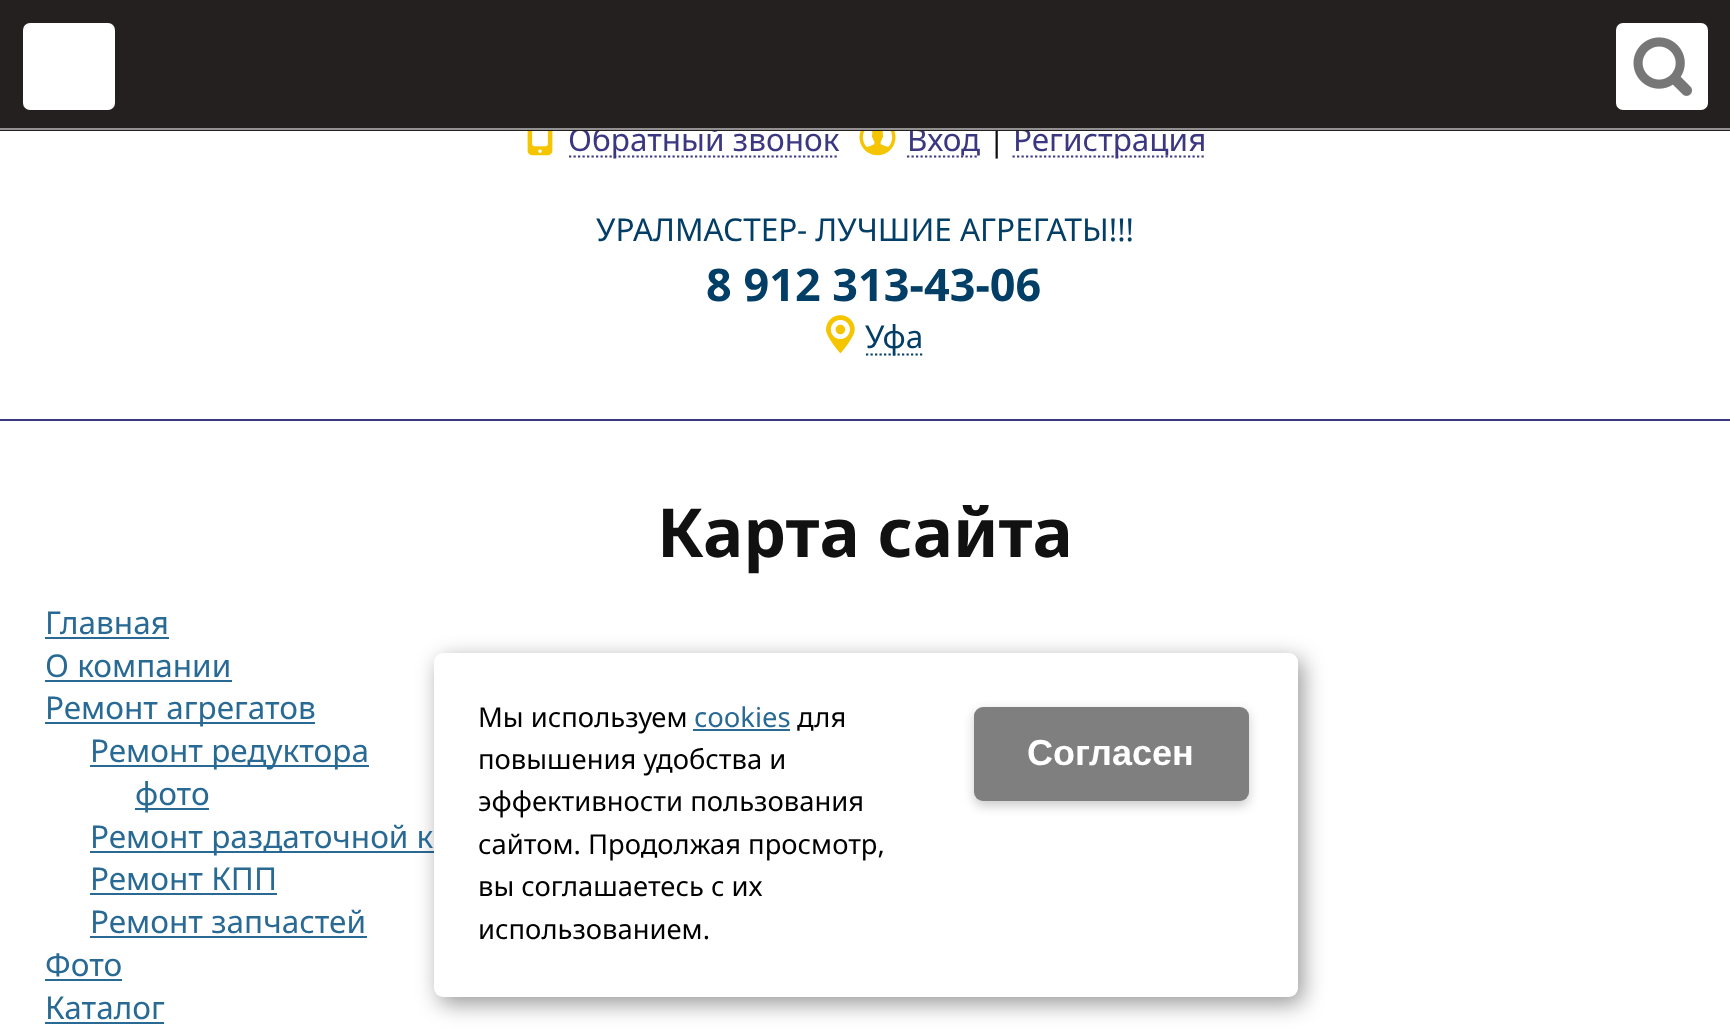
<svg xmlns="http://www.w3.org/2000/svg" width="1730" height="1029">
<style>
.a{font:31.5px Noto Sans;fill:#3b3781}
.b{font:31.5px Noto Sans;fill:#111}
.c{font:31.5px Noto Sans;fill:#033e66}
.d{font:bold 45px Noto Sans;fill:#033e66}
.e{font:bold 67.5px Noto Sans;fill:#111}
.f{font:31.5px Noto Sans;fill:#296a95}
.g{font:27.4px Noto Sans;fill:#000}
.h{font:27.4px Noto Sans;fill:#296a95}
.i{font:bold 36px Liberation Sans;fill:#fff}
</style>
<rect width="100%" height="100%" fill="#fff"/>
<path fill="#3b3781" d="M0 419h1730v2H0z"/>
<image href="2.png" x="527" y="131" width="26" height="25"/>
<path fill="none" stroke="#3b3781" stroke-width="2.2" stroke-dasharray="2.25 2.25" d="M569 156.5h270"/>
<image href="3.png" x="859" y="131" width="37" height="25"/>
<path fill="none" stroke="#3b3781" stroke-width="2.2" stroke-dasharray="2.25 2.25" d="M907 156.5h72"/>
<path fill="none" stroke="#3b3781" stroke-width="2.2" stroke-dasharray="2.25 2.25" d="M1012.5 156.5h193.5"/>
<image href="4.png" x="826" y="315" width="29" height="39"/>
<path fill="none" stroke="#033e66" stroke-width="2.2" stroke-dasharray="2.25 2.25" d="M866 354.5h56.5"/>
<path fill="#296a95" d="M45 637h124v2H45z"/>
<path fill="#296a95" d="M45 680h187v2H45z"/>
<path fill="#296a95" d="M45 722h270v2H45z"/>
<path fill="#296a95" d="M90 765h279v2H90z"/>
<path fill="#296a95" d="M135 808h74v2H135z"/>
<path fill="#296a95" d="M90 851h344v2H90z"/>
<path fill="#296a95" d="M90 893h187v2H90z"/>
<path fill="#296a95" d="M90 936h277v2H90z"/>
<path fill="#296a95" d="M45 979h77v2H45z"/>
<path fill="#296a95" d="M45 1022h119v2H45z"/>
<rect fill="#00000066" filter="blur(11px)" x="439" y="659" width="864" height="345" rx="9"/>
<rect fill="#fff" x="434" y="653" width="864" height="344" rx="9"/>
<path fill="#296a95" d="M693 729h97v2H693z"/>
<rect fill="#00000033" filter="blur(5.5px)" x="974" y="711" width="275" height="95" rx="9"/>
<rect fill="#7f7f7f" x="974" y="707" width="275" height="94" rx="9"/>
<text class="a" x="568" y="151">Обратный звонок</text>
<text class="a" x="907" y="151">Вход</text>
<text class="b" x="988" y="151">|</text>
<text class="a" x="1013" y="151">Регистрация</text>
<path fill="#242020" d="M0 0h1730v131H0z"/>
<rect fill="#fff" x="1616" y="23" width="92" height="87" rx="7"/>
<image href="1.png" x="1633" y="37" width="59" height="59"/>
<rect fill="#fff" x="23" y="23" width="92" height="87" rx="7"/>
<path fill="#929090" d="M0 128h1730v2H0z"/>
<text class="c" x="596" y="241">УРАЛМАСТЕР- ЛУЧШИЕ АГРЕГАТЫ!!!</text>
<text class="d" x="706" y="301">8 912 313-43-06</text>
<text class="c" x="865" y="348">Уфа</text>
<text class="e" x="657" y="557">Карта сайта</text>
<text class="f" x="45" y="634">Главная</text>
<text class="f" x="45" y="677">О компании</text>
<text class="f" x="45" y="719">Ремонт агрегатов</text>
<text class="f" x="90" y="762">Ремонт редуктора</text>
<text class="f" x="135" y="805">фото</text>
<text class="f" x="90" y="848">Ремонт раздаточной к</text>
<text class="f" x="90" y="890">Ремонт КПП</text>
<text class="f" x="90" y="933">Ремонт запчастей</text>
<text class="f" x="45" y="976">Фото</text>
<text class="f" x="45" y="1019">Каталог</text>
<text class="g" x="478" y="727">Мы используем</text>
<text class="h" x="694" y="727">cookies</text>
<text class="g" x="797" y="727">для</text>
<text class="g" x="478" y="769">повышения удобства и</text>
<text class="g" x="478" y="811">эффективности пользования</text>
<text class="g" x="478" y="854">сайтом. Продолжая просмотр,</text>
<text class="g" x="478" y="896">вы соглашаетесь с их</text>
<text class="g" x="478" y="939">использованием.</text>
<text class="i" x="1027" y="765">Cогласен</text>
</svg>
